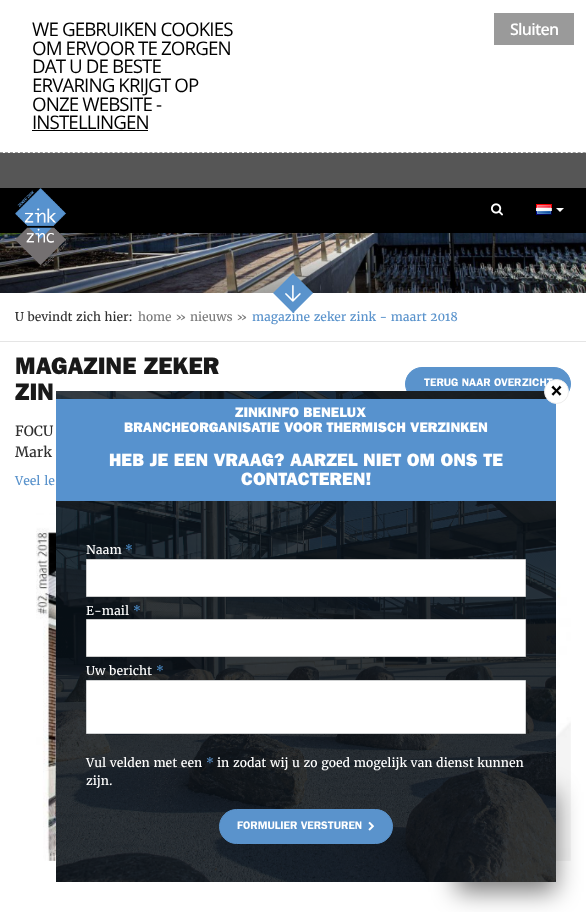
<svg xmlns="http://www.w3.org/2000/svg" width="586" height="912">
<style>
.a{font:18.75px Open Sans;letter-spacing:-0.9px;fill:#000}
.b{font:600 16px Open Sans;letter-spacing:-0.75px;fill:#fff}
.c{font:12px Merriweather;fill:#303030}
.d{font:12px Merriweather;fill:#7b7b7b}
.e{font:12px Merriweather;fill:#5a93cc}
.f{font:bold 24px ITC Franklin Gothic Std;fill:#191919}
.g{font:600 11.1px ITC Franklin Gothic Std;fill:#fff}
.h{font:14px Merriweather;fill:#303030}
.i{font:12.2px Merriweather;fill:#5a93cc}
.j{font:bold 21px Merriweather;fill:#000}
.k{font:bold 14px ITC Franklin Gothic Std;letter-spacing:0.05px;fill:#fff}
.l{font:bold 18px ITC Franklin Gothic Std;letter-spacing:0.05px;fill:#fff}
.m{font:12.2px Merriweather;fill:#fff}
.n{font:12.2px Merriweather;fill:#4d8fcc}
</style>
<rect width="100%" height="100%" fill="#565656"/>
<path fill="#fff" d="M0 0h586v153H0z"/>
<path fill="none" stroke="#9a9a9a" stroke-dasharray="3 1.98" d="M0 152.5h586"/>
<path fill="#000" d="M32 130h116v1H32z"/>
<path fill="#9a9a9a" d="M494 13h80v32H494z"/>
<path fill="#fff" d="M0 293h586v619H0z"/>
<path fill="#000" d="M0 188h586v45H0z"/>
<image href="4.png" x="0" y="233" width="586" height="60"/>
<image href="1.png" x="15" y="188" width="54" height="80"/>
<image href="2.png" x="491" y="203" width="12" height="13"/>
<image href="3.png" x="536" y="204" width="16" height="11"/>
<path fill="#fff" d="M556 208h8l-4 4z"/>
<path fill="#e5e5e5" d="M0 341h586v1H0z"/>
<rect fill="#5a93cc" stroke="#5a93cc" x="405.5" y="367.5" width="165" height="33" rx="16.5"/>
<image href="6.png" x="36" y="513" width="535" height="348"/>
<path fill="#00000080" filter="blur(12.5px)" d="M456 792h100v100H456z"/>
<path fill="#142534" d="M56 391h500v491H56z"/>
<image href="7.png" x="56" y="391" width="500" height="491"/>
<path fill="#00000066" d="M56 391h500v491H56z"/>
<path fill="#5792ce" d="M56 399h500v102H56z"/>
<circle fill="#fff" stroke="#ededed" cx="556.5" cy="391.5" r="12"/>
<path fill="#fff" stroke="#ccc" d="M86.5 559.5h439v37H86.5z"/>
<path fill="#fff" stroke="#ccc" d="M86.5 619.5h439v37H86.5z"/>
<path fill="#fff" stroke="#cfd1d2" d="M86.5 680.5h439v53H86.5z"/>
<rect fill="#5a93cc" stroke="#5a93cc" x="219.5" y="809.5" width="173" height="34" rx="17"/>
<image href="8.png" x="368" y="821" width="7" height="10"/>
<text class="a" x="32" y="36">WE GEBRUIKEN COOKIES</text>
<text class="a" x="32" y="55">OM ERVOOR TE ZORGEN</text>
<text class="a" x="32" y="73">DAT U DE BESTE</text>
<text class="a" x="32" y="92">ERVARING KRIJGT OP</text>
<text class="a" x="32" y="111">ONZE WEBSITE -</text>
<text class="a" x="32" y="129">INSTELLINGEN</text>
<text class="b" x="510" y="35">Sluiten</text>
<text class="c" x="15" y="321">U bevindt zich hier:</text>
<text class="d" x="138" y="321">home »</text>
<text class="d" x="190" y="321">nieuws »</text>
<text class="e" x="252" y="321">magazine zeker zink - maart 2018</text>
<image href="5.png" x="273" y="273" width="40" height="40"/>
<text class="f" x="15" y="374">MAGAZINE ZEKER</text>
<text class="f" x="15" y="400">ZIN</text>
<text class="g" x="424" y="386">TERUG NAAR OVERZICHT</text>
<text class="h" x="15" y="436">FOCU</text>
<text class="h" x="15" y="457">Mark</text>
<text class="i" x="15" y="485">Veel le</text>
<text class="j" x="550" y="397">×</text>
<text class="k" x="235" y="417">ZINKINFO BENELUX</text>
<text class="k" x="124" y="432">BRANCHEORGANISATIE VOOR THERMISCH VERZINKEN</text>
<text class="l" x="109" y="466">HEB JE EEN VRAAG? AARZEL NIET OM ONS TE</text>
<text class="l" x="241" y="485">CONTACTEREN!</text>
<text class="m" x="86" y="554">Naam</text>
<text class="n" x="125" y="554">*</text>
<text class="m" x="86" y="615">E-mail</text>
<text class="n" x="133" y="615">*</text>
<text class="m" x="86" y="675">Uw bericht</text>
<text class="n" x="156" y="675">*</text>
<text class="m" x="86" y="767">Vul velden met een</text>
<text class="i" x="206" y="767">*</text>
<text class="m" x="217" y="767">in zodat wij u zo goed mogelijk van dienst kunnen</text>
<text class="m" x="86" y="785">zijn.</text>
<text class="g" x="237" y="829">FORMULIER VERSTUREN</text>
</svg>
